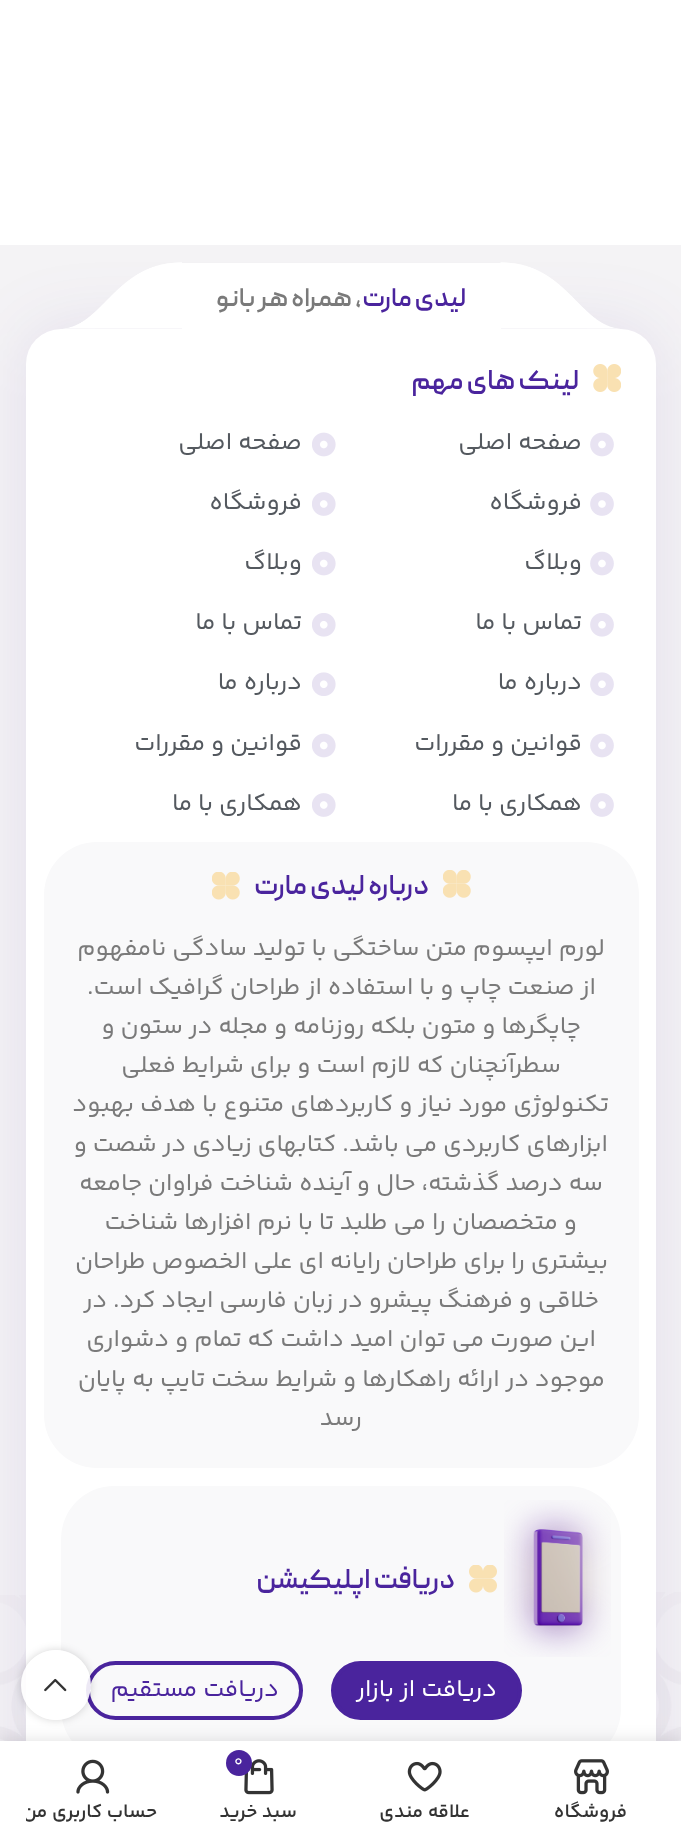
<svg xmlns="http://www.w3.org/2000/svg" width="681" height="1837">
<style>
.a{font:600 26.25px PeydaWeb;direction:rtl;fill:#4a249d}
.b{font:600 26.25px PeydaWeb;direction:rtl;fill:#7a7a7a}
.c{font:600 28px PeydaWeb;direction:rtl;fill:#4a249d}
.d{font:24.5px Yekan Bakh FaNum;direction:rtl;fill:#54595f}
.e{font:24.5px Yekan Bakh FaNum;direction:rtl;fill:#7a7a7a}
.f{font:24.5px Yekan Bakh FaNum;direction:rtl;fill:#fff}
.g{font:24.5px Yekan Bakh FaNum;direction:rtl;fill:#4a249d}
.h{font:600 19.25px Yekan Bakh FaNum;direction:rtl;fill:#333}
.i{font:16px Yekan Bakh FaNum;fill:#fff}
</style>
<defs>
<clipPath id="clip1"><path d="M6 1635h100v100h-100zm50 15c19.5 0 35 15.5 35 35c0 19.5-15.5 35-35 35c-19.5 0-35-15.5-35-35c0-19.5 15.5-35 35-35z" clip-rule="evenodd"/></clipPath>
<clipPath id="clip2"><path d="M26 1801h132v23H26z"/></clipPath>
</defs>
<rect width="100%" height="100%" fill="#fff"/>
<path fill="#f4f3f5" d="M0 245h681v1496H0z"/>
<image href="1.png" x="0" y="1595" width="26" height="146"/>
<image href="2.png" x="656" y="1592" width="25" height="149"/>
<rect fill="#4a249d1a" filter="blur(35px)" x="26" y="329" width="630" height="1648" rx="35"/>
<image href="3.png" x="500" y="262" width="120" height="67"/>
<path fill="#fff" d="M182 263h319v66H182z"/>
<image href="4.png" x="63" y="262" width="119" height="67"/>
<rect fill="#fff" x="26" y="329" width="630" height="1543" rx="35"/>
<image href="5.png" x="593" y="364" width="28" height="28"/>
<image href="6.png" x="590" y="432" width="24" height="25"/>
<image href="7.png" x="590" y="492" width="24" height="24"/>
<image href="6.png" x="590" y="551" width="24" height="25"/>
<image href="8.png" x="590" y="613" width="24" height="24"/>
<image href="9.png" x="590" y="672" width="24" height="24"/>
<image href="6.png" x="590" y="733" width="24" height="25"/>
<image href="7.png" x="590" y="793" width="24" height="24"/>
<image href="10.png" x="312" y="432" width="24" height="25"/>
<image href="11.png" x="312" y="492" width="24" height="24"/>
<image href="10.png" x="312" y="551" width="24" height="25"/>
<image href="12.png" x="312" y="613" width="24" height="24"/>
<image href="13.png" x="312" y="672" width="24" height="24"/>
<image href="10.png" x="312" y="733" width="24" height="25"/>
<image href="11.png" x="312" y="793" width="24" height="24"/>
<rect fill="#f9f9fa" x="44" y="842" width="595" height="626" rx="53"/>
<image href="14.png" x="443" y="870" width="28" height="28"/>
<image href="15.png" x="212" y="872" width="28" height="28"/>
<rect fill="#f9f9fa" x="61" y="1486" width="560" height="276" rx="53"/>
<image href="16.png" x="504" y="1500" width="107" height="157"/>
<image href="17.png" x="533" y="1529" width="50" height="97"/>
<image href="18.png" x="469" y="1565" width="28" height="28"/>
<rect fill="#4a249d" stroke="#4a249d" stroke-width="4" x="333" y="1663" width="187" height="55" rx="27.5"/>
<rect fill="none" stroke="#4a249d" stroke-width="4" x="88" y="1663" width="213" height="55" rx="27.5"/>
<g clip-path="url(#clip1)">
<rect fill="#0000002b" filter="blur(4.5px)" x="21" y="1650" width="70" height="70" rx="35"/>
</g>
<circle fill="#ffffffe6" cx="56" cy="1685" r="35"/>
<image href="19.png" x="44" y="1678" width="23" height="14"/>
<path fill="#0000001f" filter="blur(8px)" d="M0 1741h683v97H0z"/>
<path fill="#fff" d="M0 1741h681v96H0z"/>
<image href="20.png" x="574" y="1759" width="35" height="36"/>
<image href="21.png" x="407" y="1761" width="35" height="31"/>
<image href="22.png" x="244" y="1759" width="30" height="36"/>
<circle fill="#4a249d" cx="239" cy="1763" r="13"/>
<image href="23.png" x="76" y="1759" width="34" height="35"/>
<text class="a" x="466" y="306">لیدی مارت</text>
<text class="b" x="362" y="306">، همراه هر بانو</text>
<text class="c" x="579" y="389">لینک های مهم</text>
<text class="d" x="582" y="449">صفحه اصلی</text>
<text class="d" x="582" y="509">فروشگاه</text>
<text class="d" x="582" y="569">وبلاگ</text>
<text class="d" x="582" y="629">تماس با ما</text>
<text class="d" x="582" y="689">درباره ما</text>
<text class="d" x="582" y="750">قوانین و مقررات</text>
<text class="d" x="582" y="810">همکاری با ما</text>
<text class="d" x="302" y="449">صفحه اصلی</text>
<text class="d" x="302" y="509">فروشگاه</text>
<text class="d" x="302" y="569">وبلاگ</text>
<text class="d" x="302" y="629">تماس با ما</text>
<text class="d" x="302" y="689">درباره ما</text>
<text class="d" x="302" y="750">قوانین و مقررات</text>
<text class="d" x="302" y="810">همکاری با ما</text>
<text class="c" x="429" y="894">درباره لیدی مارت</text>
<text class="e" x="605" y="955">لورم ایپسوم متن ساختگی با تولید سادگی نامفهوم</text>
<text class="e" x="596" y="994">از صنعت چاپ و با استفاده از طراحان گرافیک است.</text>
<text class="e" x="581" y="1033">چاپگرها و متون بلکه روزنامه و مجله در ستون و</text>
<text class="e" x="561" y="1072">سطرآنچنان که لازم است و برای شرایط فعلی</text>
<text class="e" x="609" y="1111">تکنولوژی مورد نیاز و کاربردهای متنوع با هدف بهبود</text>
<text class="e" x="608" y="1151">ابزارهای کاربردی می باشد. کتابهای زیادی در شصت و</text>
<text class="e" x="603" y="1190">سه درصد گذشته، حال و آینده شناخت فراوان جامعه</text>
<text class="e" x="577" y="1229">و متخصصان را می طلبد تا با نرم افزارها شناخت</text>
<text class="e" x="608" y="1268">بیشتری را برای طراحان رایانه ای علی الخصوص طراحان</text>
<text class="e" x="599" y="1307">خلاقی و فرهنگ پیشرو در زبان فارسی ایجاد کرد. در</text>
<text class="e" x="596" y="1346">این صورت می توان امید داشت که تمام و دشواری</text>
<text class="e" x="605" y="1386">موجود در ارائه راهکارها و شرایط سخت تایپ به پایان</text>
<text class="e" x="362" y="1425">رسد</text>
<text class="c" x="455" y="1588">دریافت اپلیکیشن</text>
<text class="f" x="497" y="1696">دریافت از بازار</text>
<text class="g" x="279" y="1696">دریافت مستقیم</text>
<text class="h" x="627" y="1817">فروشگاه</text>
<text class="h" x="470" y="1817">علاقه مندی</text>
<text class="i" x="234" y="1766">0</text>
<text class="h" x="297" y="1817">سبد خرید</text>
<g clip-path="url(#clip2)">
<text class="h" x="157" y="1817">حساب کاربری من</text>
</g>
</svg>
